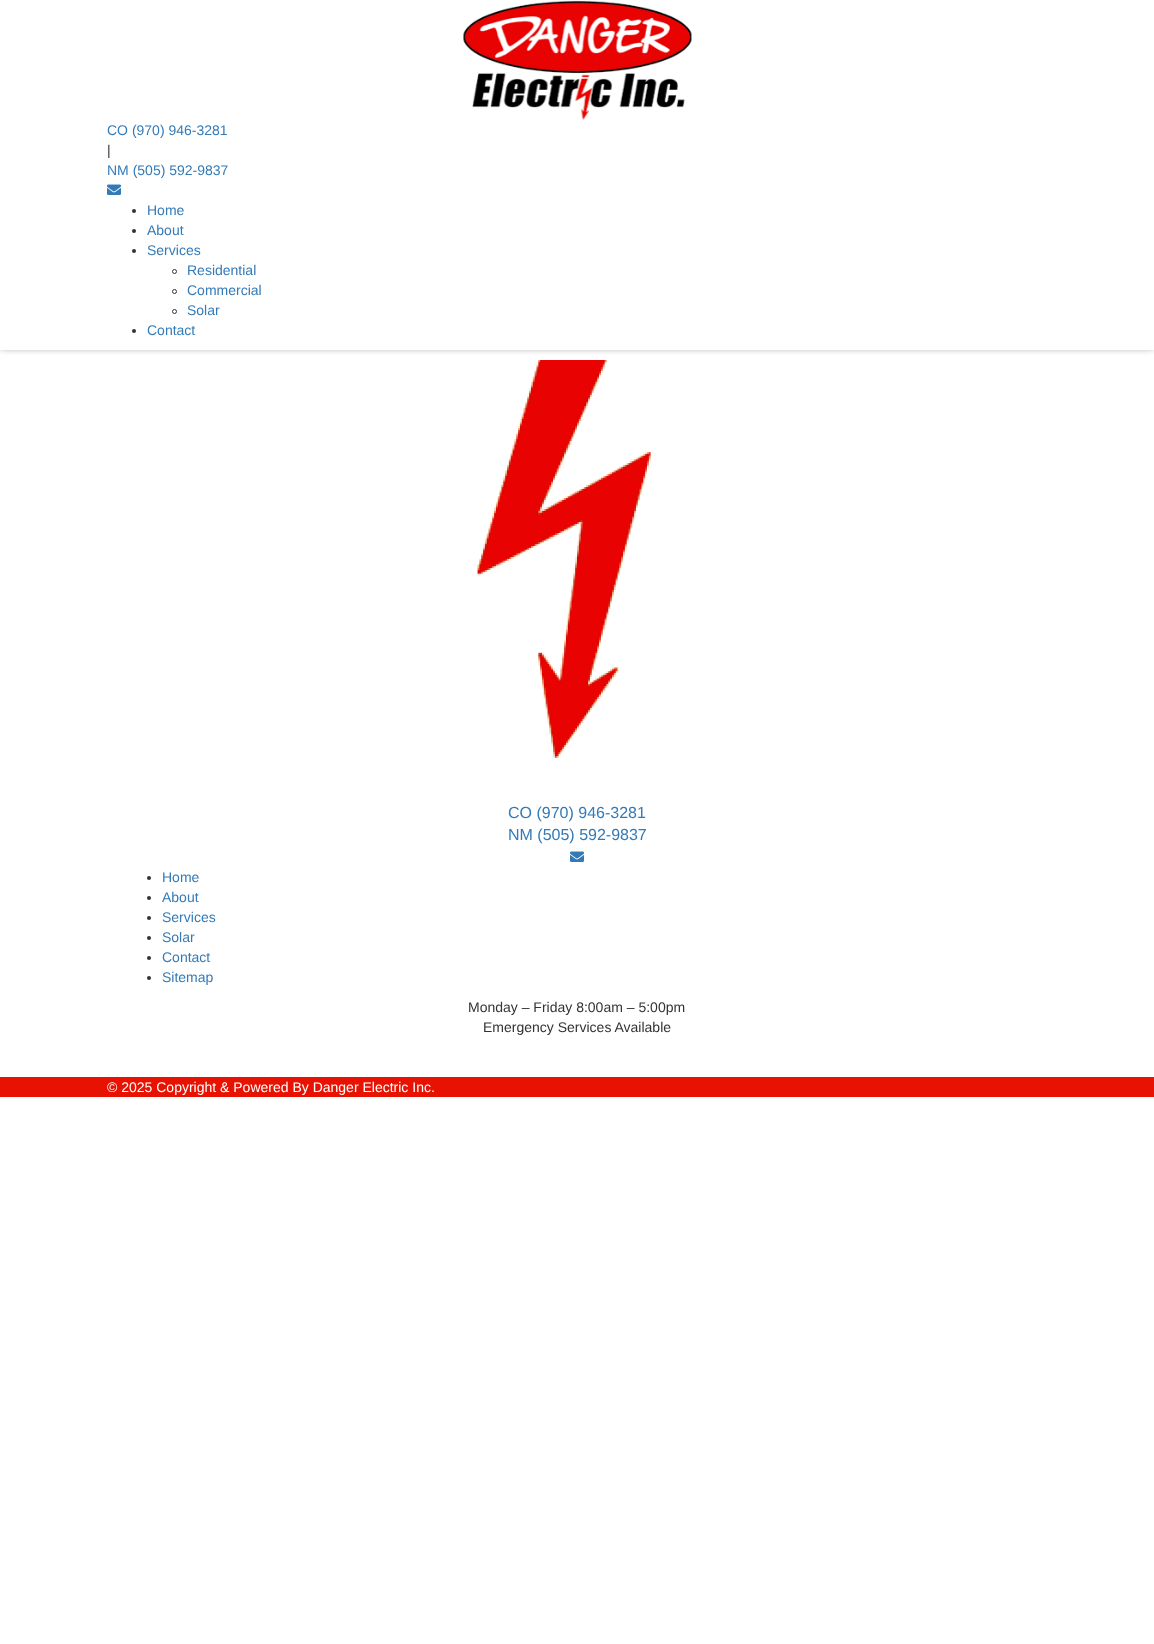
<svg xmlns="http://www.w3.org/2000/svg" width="1154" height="1644">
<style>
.a{font:14px Liberation Sans;fill:#337ab7}
.b{font:14px Liberation Sans;fill:#333}
.c{font:16px Liberation Sans;fill:#337ab7}
.d{font:14px Liberation Sans;fill:#fff}
</style>
<rect width="100%" height="100%" fill="#fff"/>
<image href="3.png" x="477" y="360" width="174" height="398"/>
<path fill="#000" filter="blur(5px)" d="M0 -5h1154v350H0z"/>
<path fill="#fff" d="M0 0h1154v350H0z"/>
<image href="1.png" x="463" y="0" width="229" height="120"/>
<image href="2.png" x="107" y="184" width="14" height="11"/>
<circle fill="#333" cx="134" cy="211" r="2"/>
<circle fill="#333" cx="134" cy="231" r="2"/>
<circle fill="#333" cx="134" cy="251" r="2"/>
<circle fill="none" stroke="#333" cx="174.5" cy="271.5" r="2"/>
<circle fill="none" stroke="#333" cx="174.5" cy="291.5" r="2"/>
<circle fill="none" stroke="#333" cx="174.5" cy="311.5" r="2"/>
<circle fill="#333" cx="134" cy="331" r="2"/>
<image href="2.png" x="570" y="851" width="14" height="11"/>
<circle fill="#333" cx="149" cy="878" r="2"/>
<circle fill="#333" cx="149" cy="898" r="2"/>
<circle fill="#333" cx="149" cy="918" r="2"/>
<circle fill="#333" cx="149" cy="938" r="2"/>
<circle fill="#333" cx="149" cy="958" r="2"/>
<circle fill="#333" cx="149" cy="978" r="2"/>
<path fill="#e81202" d="M0 1077h1154v20H0z"/>
<text class="a" x="107" y="135">CO (970) 946-3281</text>
<text class="b" x="107" y="155">|</text>
<text class="a" x="107" y="175">NM (505) 592-9837</text>
<text class="a" x="147" y="215">Home</text>
<text class="a" x="147" y="235">About</text>
<text class="a" x="147" y="255">Services</text>
<text class="a" x="187" y="275">Residential</text>
<text class="a" x="187" y="295">Commercial</text>
<text class="a" x="187" y="315">Solar</text>
<text class="a" x="147" y="335">Contact</text>
<text class="c" x="508" y="818">CO (970) 946-3281</text>
<text class="c" x="508" y="840">NM (505) 592-9837</text>
<text class="a" x="162" y="882">Home</text>
<text class="a" x="162" y="902">About</text>
<text class="a" x="162" y="922">Services</text>
<text class="a" x="162" y="942">Solar</text>
<text class="a" x="162" y="962">Contact</text>
<text class="a" x="162" y="982">Sitemap</text>
<text class="b" x="468" y="1012">Monday – Friday 8:00am – 5:00pm</text>
<text class="b" x="483" y="1032">Emergency Services Available</text>
<text class="d" x="107" y="1092">© 2025 Copyright &amp; Powered By Danger Electric Inc.</text>
</svg>
